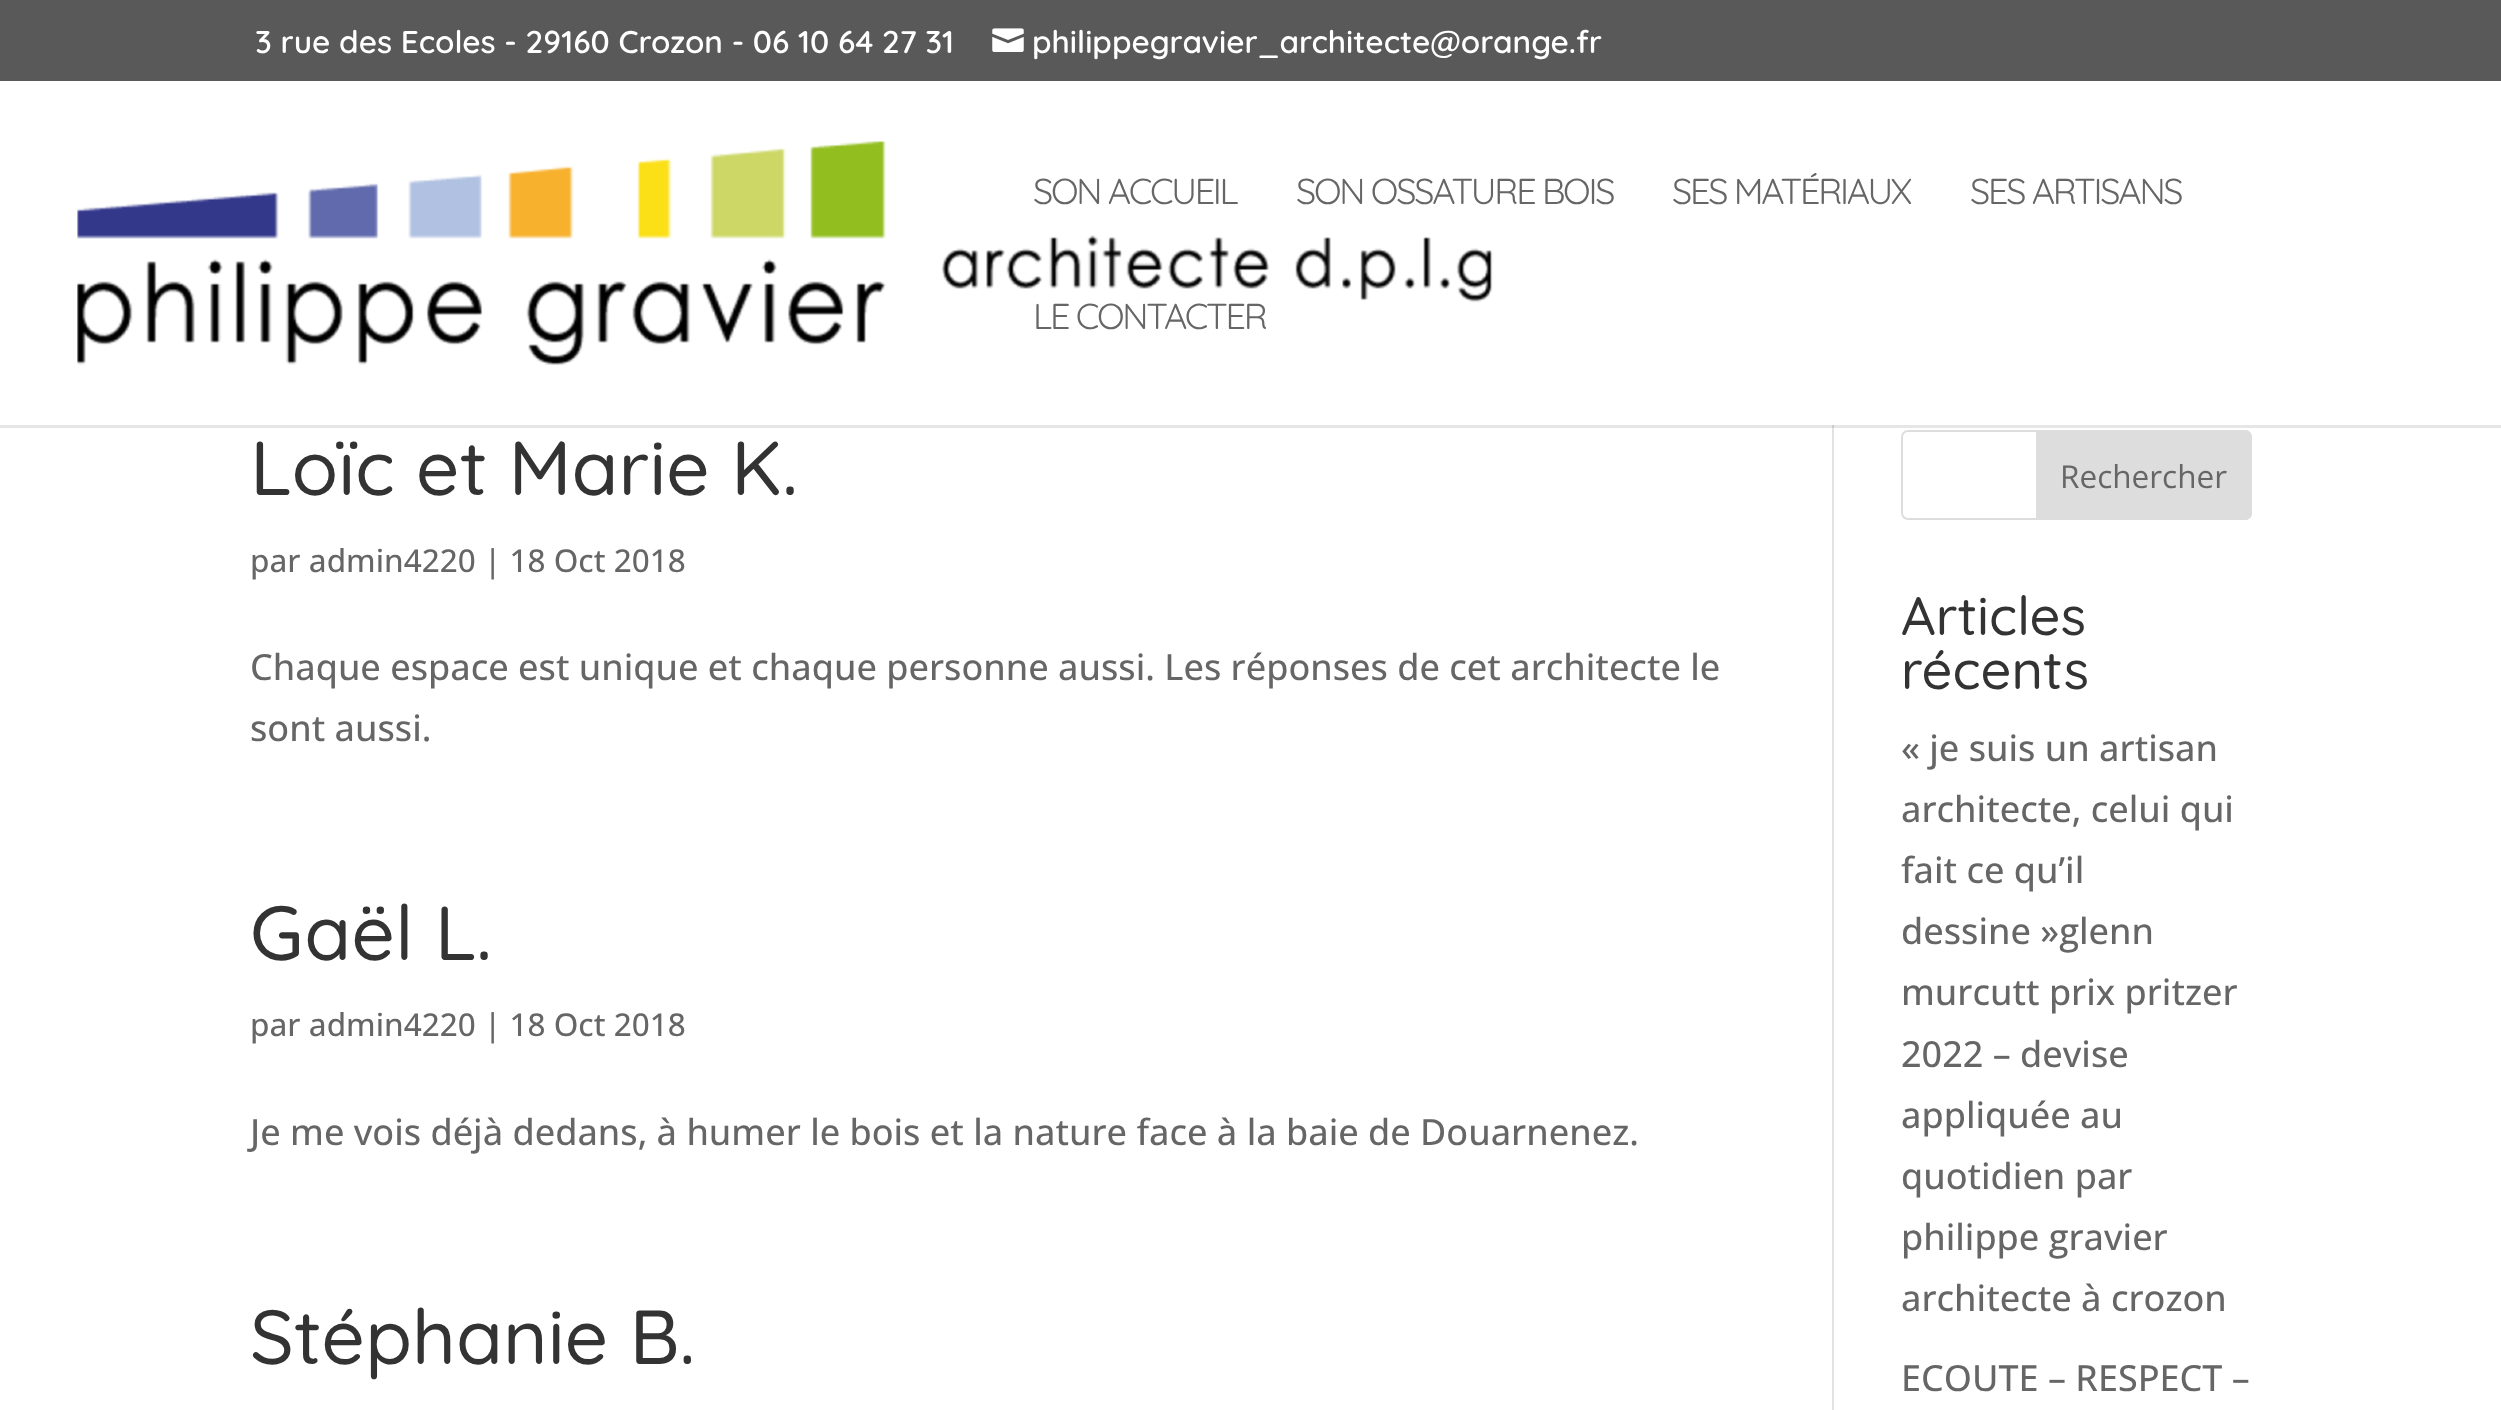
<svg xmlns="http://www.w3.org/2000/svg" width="2501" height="1410">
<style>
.a{font:600 31.5px Quicksand;fill:#fff}
.b{font:36px Quicksand;letter-spacing:-2.25px;fill:#666}
.c{font:500 76.5px Quicksand;fill:#333}
.d{font:500 31.5px Open Sans;fill:#666}
.e{font:500 36px Open Sans;fill:#666}
.f{font:31.5px Open Sans;fill:#666}
.g{font:500 54px Quicksand;fill:#333}
</style>
<rect width="100%" height="100%" fill="#fff"/>
<path fill="#e6e6e6" d="M0 425h2501v3H0z"/>
<path fill="#595959" d="M0 0h2501v81H0z"/>
<image href="1.png" x="992" y="28" width="32" height="24"/>
<image href="2.png" x="77" y="141" width="1416" height="224"/>
<path fill="#e2e2e2" d="M1832 428h2v982H1832z"/>
<path fill="#cbcbcb" d="M1832 425h2v3H1832z"/>
<rect fill="none" stroke="#ddd" stroke-width="2" x="1902" y="431" width="349" height="88" rx="6"/>
<path fill="#ddd" stroke="#ddd" stroke-width="2" d="M2037 431h208c3.5 0 6 2.5 6 6v76c0 3.5-2.5 6-6 6h-208z"/>
<text class="a" x="255" y="53">3 rue des Ecoles - 29160 Crozon - 06 10 64 27 31</text>
<text class="a" x="1032" y="53">philippegravier_architecte@orange.fr</text>
<text class="b" x="1033" y="204">SON ACCUEIL</text>
<text class="b" x="1296" y="204">SON OSSATURE BOIS</text>
<text class="b" x="1672" y="204">SES MATÉRIAUX</text>
<text class="b" x="1970" y="204">SES ARTISANS</text>
<text class="b" x="1033" y="329">LE CONTACTER</text>
<text class="c" x="250" y="495">Loïc et Marie K.</text>
<text class="d" x="250" y="572">par admin4220 | 18 Oct 2018</text>
<text class="e" x="250" y="680">Chaque espace est unique et chaque personne aussi. Les réponses de cet architecte le</text>
<text class="e" x="250" y="741">sont aussi.</text>
<text class="c" x="250" y="960">Gaël L.</text>
<text class="d" x="250" y="1036">par admin4220 | 18 Oct 2018</text>
<text class="e" x="250" y="1145">Je me vois déjà dedans, à humer le bois et la nature face à la baie de Douarnenez.</text>
<text class="c" x="250" y="1364">Stéphanie B.</text>
<text class="f" x="2060" y="488">Rechercher</text>
<text class="g" x="1901" y="635">Articles</text>
<text class="g" x="1901" y="689">récents</text>
<text class="e" x="1901" y="761">« je suis un artisan</text>
<text class="e" x="1901" y="822">architecte, celui qui</text>
<text class="e" x="1901" y="883">fait ce qu’il</text>
<text class="e" x="1901" y="944">dessine »glenn</text>
<text class="e" x="1901" y="1005">murcutt prix pritzer</text>
<text class="e" x="1901" y="1067">2022 – devise</text>
<text class="e" x="1901" y="1128">appliquée au</text>
<text class="e" x="1901" y="1189">quotidien par</text>
<text class="e" x="1901" y="1250">philippe gravier</text>
<text class="e" x="1901" y="1311">architecte à crozon</text>
<text class="e" x="1901" y="1391">ECOUTE – RESPECT –</text>
</svg>
